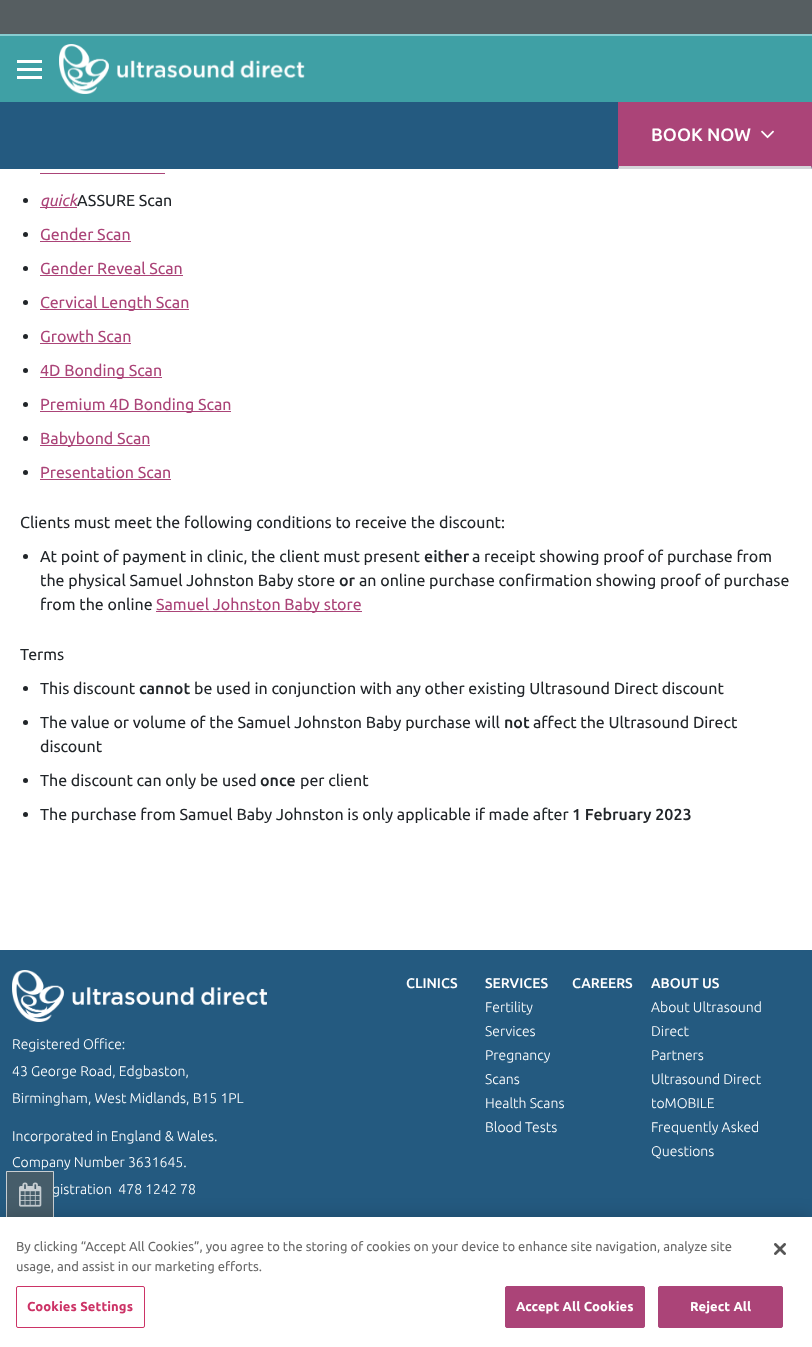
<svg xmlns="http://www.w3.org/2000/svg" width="812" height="1347">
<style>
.a{font:500 18px Ubuntu;fill:#fff}
.b{font:italic 16px Ubuntu;fill:#ab4478}
.c{font:16px Ubuntu;fill:#212529}
.d{font:16px Ubuntu;fill:#ab4478}
.e{font:500 16px Ubuntu;fill:#212529}
.f{font:500 14px Ubuntu;fill:#fff}
.g{font:300 14px Ubuntu;fill:#fff}
.h{font:13px Ubuntu;fill:#696969}
.i{font:bold 13px Ubuntu;letter-spacing:0.1px;fill:#c36}
.j{font:bold 13px Ubuntu;letter-spacing:0.1px;fill:#fff}
</style>
<rect width="100%" height="100%" fill="#fff"/>
<path fill="#565e61" d="M0 0h812v34H0z"/>
<path fill="#87ccd0" d="M0 34h812v2H0z"/>
<path fill="#3fa0a5" d="M0 36h812v66H0z"/>
<path fill="#fff" d="M17 60h25v3H17z"/>
<path fill="#fff" d="M17 68h25v3H17z"/>
<path fill="#fff" d="M17 76h25v3H17z"/>
<image href="1.png" x="59" y="44" width="246" height="50"/>
<path fill="#245a80" d="M0 102h812v67H0z"/>
<path fill="#ab4478" d="M619 103h192v63H619z"/>
<path fill="#ab4478" d="M618 102h194v1H618z"/>
<path fill="#ab4478" d="M812 102v67l-1-3v-63z"/>
<path fill="#d4d5d9" d="M812 169h-194l1-3h192z"/>
<path fill="#ab4478" d="M618 169v-67l1 1v63z"/>
<image href="2.png" x="761" y="130" width="13" height="9"/>
<path fill="#ab4478" d="M40 173h125v1H40z"/>
<circle fill="#212529" cx="25.5" cy="200.5" r="2.5"/>
<path fill="#ab4478" d="M40 207h37v1H40z"/>
<circle fill="#212529" cx="25.5" cy="234.5" r="2.5"/>
<path fill="#ab4478" d="M40 241h91v1H40z"/>
<circle fill="#212529" cx="25.5" cy="268.5" r="2.5"/>
<path fill="#ab4478" d="M40 275h143v1H40z"/>
<circle fill="#212529" cx="25.5" cy="302.5" r="2.5"/>
<path fill="#ab4478" d="M40 309h149v1H40z"/>
<circle fill="#212529" cx="25.5" cy="336.5" r="2.5"/>
<path fill="#ab4478" d="M40 343h91v1H40z"/>
<circle fill="#212529" cx="25.5" cy="370.5" r="2.5"/>
<path fill="#ab4478" d="M40 377h122v1H40z"/>
<circle fill="#212529" cx="25.5" cy="404.5" r="2.5"/>
<path fill="#ab4478" d="M40 411h191v1H40z"/>
<circle fill="#212529" cx="25.5" cy="438.5" r="2.5"/>
<path fill="#ab4478" d="M40 445h110v1H40z"/>
<circle fill="#212529" cx="25.5" cy="472.5" r="2.5"/>
<path fill="#ab4478" d="M40 479h131v1H40z"/>
<circle fill="#212529" cx="25.5" cy="556.5" r="2.5"/>
<path fill="#ab4478" d="M156 611h206v1H156z"/>
<circle fill="#212529" cx="25.5" cy="688.5" r="2.5"/>
<circle fill="#212529" cx="25.5" cy="722.5" r="2.5"/>
<circle fill="#212529" cx="25.5" cy="780.5" r="2.5"/>
<circle fill="#212529" cx="25.5" cy="814.5" r="2.5"/>
<path fill="#245a80" d="M0 950h812v267H0z"/>
<image href="3.png" x="12" y="970" width="255" height="52"/>
<text class="a" x="651" y="141">BOOK NOW</text>
<text class="b" x="40" y="206">quick</text>
<text class="c" x="77" y="206">ASSURE Scan</text>
<text class="d" x="40" y="240">Gender Scan</text>
<text class="d" x="40" y="274">Gender Reveal Scan</text>
<text class="d" x="40" y="308">Cervical Length Scan</text>
<text class="d" x="40" y="342">Growth Scan</text>
<text class="d" x="40" y="376">4D Bonding Scan</text>
<text class="d" x="40" y="410">Premium 4D Bonding Scan</text>
<text class="d" x="40" y="444">Babybond Scan</text>
<text class="d" x="40" y="478">Presentation Scan</text>
<text class="c" x="20" y="528">Clients must meet the following conditions to receive the discount:</text>
<text class="c" x="40" y="562">At point of payment in clinic, the client must present</text>
<text class="e" x="424" y="562">either</text>
<text class="c" x="472" y="562">a receipt showing proof of purchase from</text>
<text class="c" x="40" y="586">the physical Samuel Johnston Baby store</text>
<text class="e" x="339" y="586">or</text>
<text class="c" x="359" y="586">an online purchase confirmation showing proof of purchase</text>
<text class="c" x="40" y="610">from the online</text>
<text class="d" x="156" y="610">Samuel Johnston Baby store</text>
<text class="c" x="20" y="660">Terms</text>
<text class="c" x="40" y="694">This discount</text>
<text class="e" x="139" y="694">cannot</text>
<text class="c" x="194" y="694">be used in conjunction with any other existing Ultrasound Direct discount</text>
<text class="c" x="40" y="728">The value or volume of the Samuel Johnston Baby purchase will</text>
<text class="e" x="504" y="728">not</text>
<text class="c" x="533" y="728">affect the Ultrasound Direct</text>
<text class="c" x="40" y="752">discount</text>
<text class="c" x="40" y="786">The discount can only be used</text>
<text class="e" x="260" y="786">once</text>
<text class="c" x="300" y="786">per client</text>
<text class="c" x="40" y="820">The purchase from Samuel Baby Johnston is only applicable if made after</text>
<text class="e" x="572" y="820">1 February 2023</text>
<text class="f" x="406" y="988">CLINICS</text>
<text class="f" x="485" y="988">SERVICES</text>
<text class="g" x="485" y="1012">Fertility</text>
<text class="g" x="485" y="1036">Services</text>
<text class="g" x="485" y="1060">Pregnancy</text>
<text class="g" x="485" y="1084">Scans</text>
<text class="g" x="485" y="1108">Health Scans</text>
<text class="g" x="485" y="1132">Blood Tests</text>
<text class="f" x="572" y="988">CAREERS</text>
<text class="f" x="651" y="988">ABOUT US</text>
<text class="g" x="651" y="1012">About Ultrasound</text>
<text class="g" x="651" y="1036">Direct</text>
<text class="g" x="651" y="1060">Partners</text>
<text class="g" x="651" y="1084">Ultrasound Direct</text>
<text class="g" x="651" y="1108">toMOBILE</text>
<text class="g" x="651" y="1132">Frequently Asked</text>
<text class="g" x="651" y="1156">Questions</text>
<text class="g" x="12" y="1049">Registered Office:</text>
<text class="g" x="12" y="1076">43 George Road, Edgbaston,</text>
<text class="g" x="12" y="1103">Birmingham, West Midlands, B15 1PL</text>
<text class="g" x="12" y="1141">Incorporated in England &amp; Wales.</text>
<text class="g" x="12" y="1167">Company Number 3631645.</text>
<text class="g" xml:space="preserve" x="52" y="1194">gistration  478 1242 78</text>
<path fill="#565e61b3" d="M6 1171h48v46H6z"/>
<path fill="none" stroke="#ffffffb3" d="M6.5 1171.5h47v47H6.5z"/>
<image href="4.png" x="19" y="1182" width="23" height="25"/>
<path fill="#00000033" filter="blur(9px)" d="M0 1217h812v130H0z"/>
<path fill="#fff" d="M0 1217h812v130H0z"/>
<text class="h" x="16" y="1251">By clicking “Accept All Cookies”, you agree to the storing of cookies on your device to enhance site navigation, analyze site</text>
<text class="h" x="16" y="1271">usage, and assist in our marketing efforts.</text>
<rect fill="none" stroke="#c36" x="16.5" y="1286.5" width="128" height="41" rx="1.5"/>
<text class="i" x="27" y="1311">Cookies Settings</text>
<rect fill="#ab4478" stroke="#ab4478" x="505.5" y="1286.5" width="139" height="41" rx="1.5"/>
<text class="j" x="516" y="1311">Accept All Cookies</text>
<rect fill="#ab4478" stroke="#ab4478" x="658.5" y="1286.5" width="124" height="41" rx="1.5"/>
<text class="j" x="690" y="1311">Reject All</text>
<image href="5.png" x="774" y="1243" width="12" height="12"/>
</svg>
